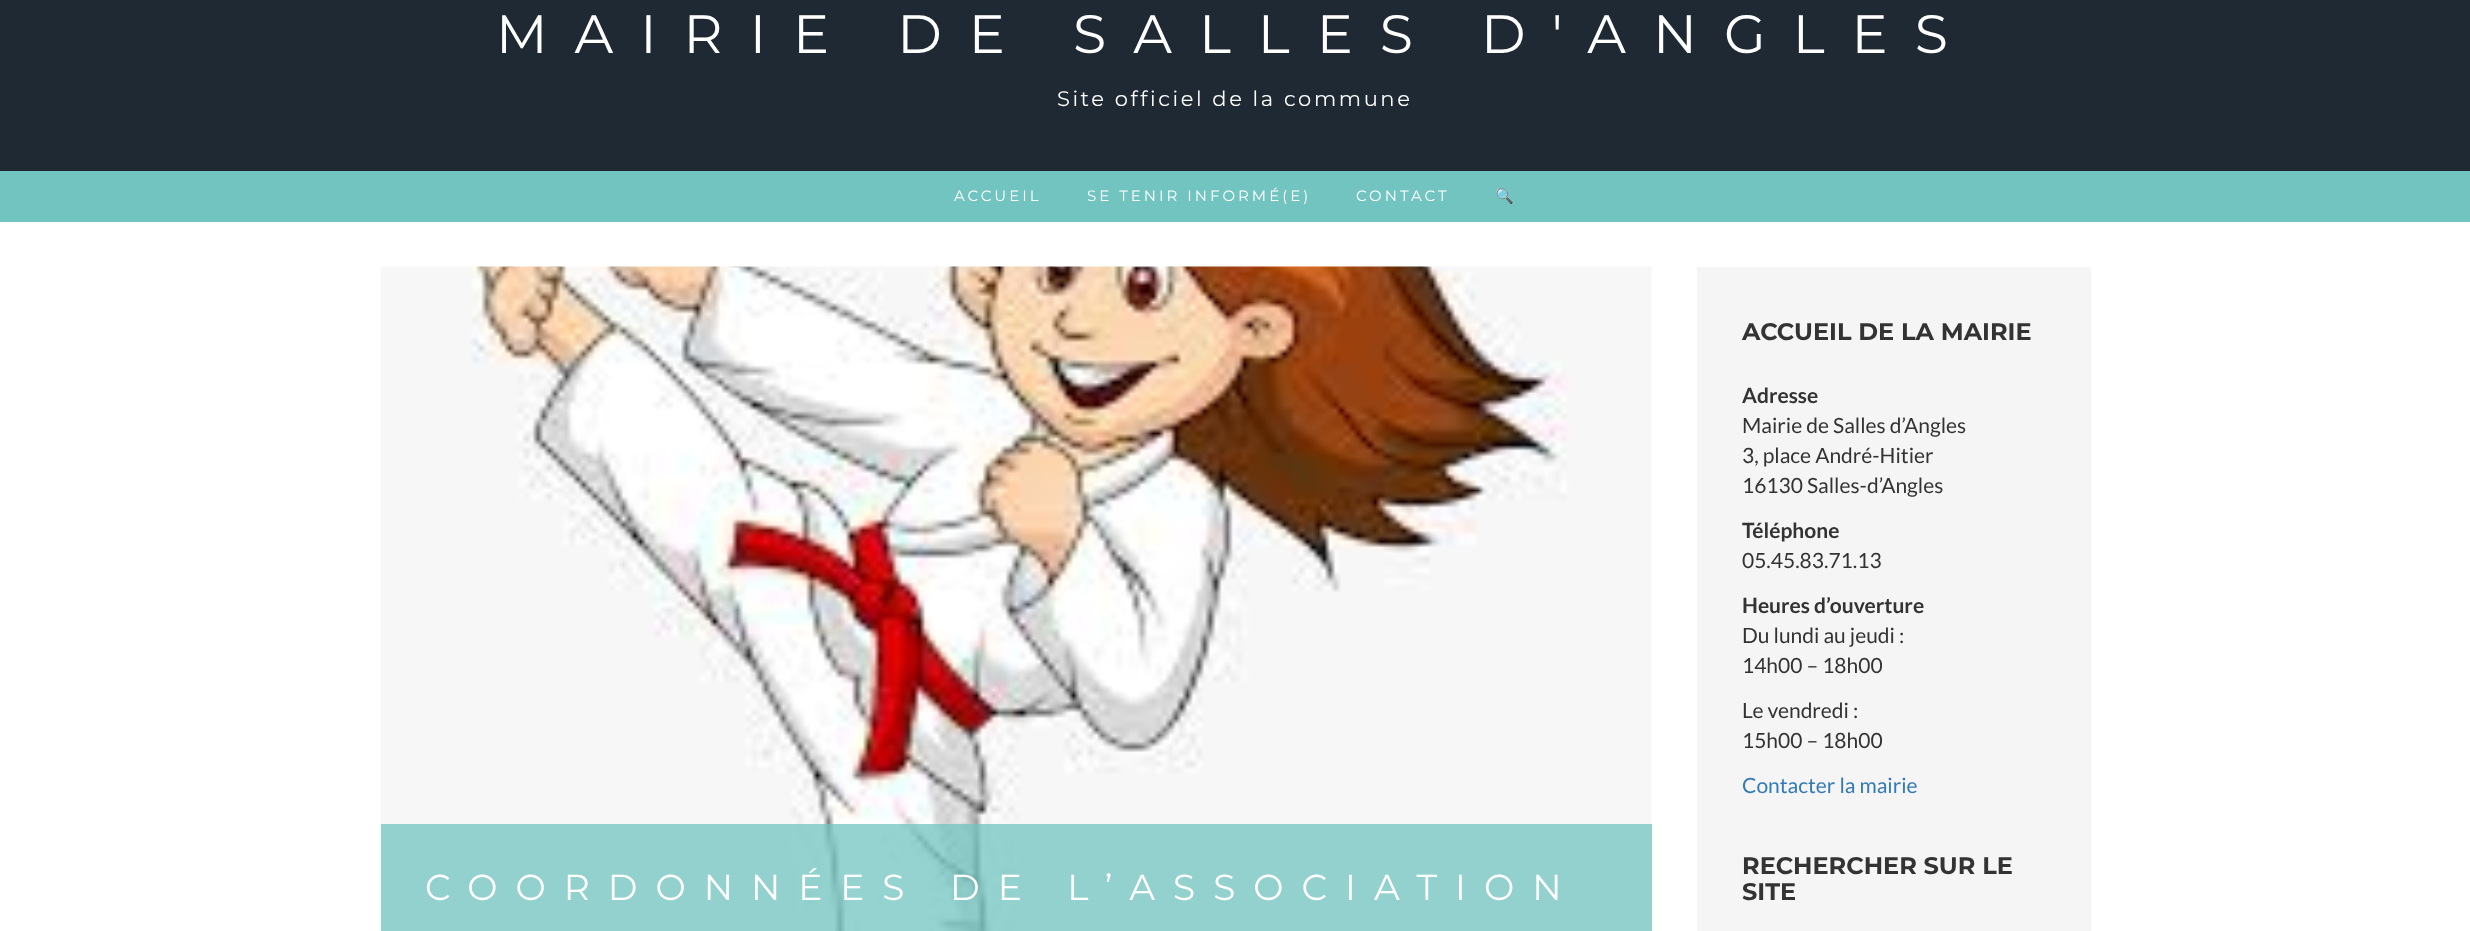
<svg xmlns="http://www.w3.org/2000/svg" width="2470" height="931">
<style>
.a{font:54px Montserrat;letter-spacing:27px;fill:#fff}
.b{font:21px Montserrat;letter-spacing:2.6px;fill:#fff}
.c{font:15px Montserrat;letter-spacing:3px;fill:#fff}
.d{font:15px Noto Color Emoji;letter-spacing:3px;fill:#fff}
.e{font:36px Montserrat;letter-spacing:18px;fill:#fff}
.f{font:bold 24px Montserrat;fill:#333}
.g{font:bold 21px Lato;fill:#333}
.h{font:21px Lato;fill:#333}
.i{font:21px Lato;fill:#337ab7}
</style>
<rect width="100%" height="100%" fill="#fff"/>
<path fill="#1f2933" d="M0 0h2470v171H0z"/>
<path fill="#72c4c0" d="M0 171h2470v51H0z"/>
<image href="1.png" x="381" y="266" width="1271" height="665"/>
<path fill="#72c4c0bf" d="M381 824h1271v107H381z"/>
<path fill="#f5f5f5" d="M1697 267h394v664H1697z"/>
<text class="a" x="496" y="53">MAIRIE DE SALLES D'ANGLES</text>
<text class="b" x="1057" y="106">Site officiel de la commune</text>
<text class="c" x="954" y="201">ACCUEIL</text>
<text class="c" x="1087" y="201">SE TENIR INFORMÉ(E)</text>
<text class="c" x="1356" y="201">CONTACT</text>
<text class="d" x="1495" y="201">🔍</text>
<text class="e" x="425" y="900">COORDONNÉES DE L’ASSOCIATION</text>
<text class="f" x="1742" y="340">ACCUEIL DE LA MAIRIE</text>
<text class="g" x="1742" y="403">Adresse</text>
<text class="h" x="1742" y="433">Mairie de Salles d’Angles</text>
<text class="h" x="1742" y="463">3, place André-Hitier</text>
<text class="h" x="1742" y="493">16130 Salles-d’Angles</text>
<text class="g" x="1742" y="538">Téléphone</text>
<text class="h" x="1742" y="568">05.45.83.71.13</text>
<text class="g" x="1742" y="613">Heures d’ouverture</text>
<text class="h" x="1742" y="643">Du lundi au jeudi :</text>
<text class="h" x="1742" y="673">14h00 – 18h00</text>
<text class="h" x="1742" y="718">Le vendredi :</text>
<text class="h" x="1742" y="748">15h00 – 18h00</text>
<text class="i" x="1742" y="793">Contacter la mairie</text>
<text class="f" x="1742" y="874">RECHERCHER SUR LE</text>
<text class="f" x="1742" y="900">SITE</text>
</svg>
